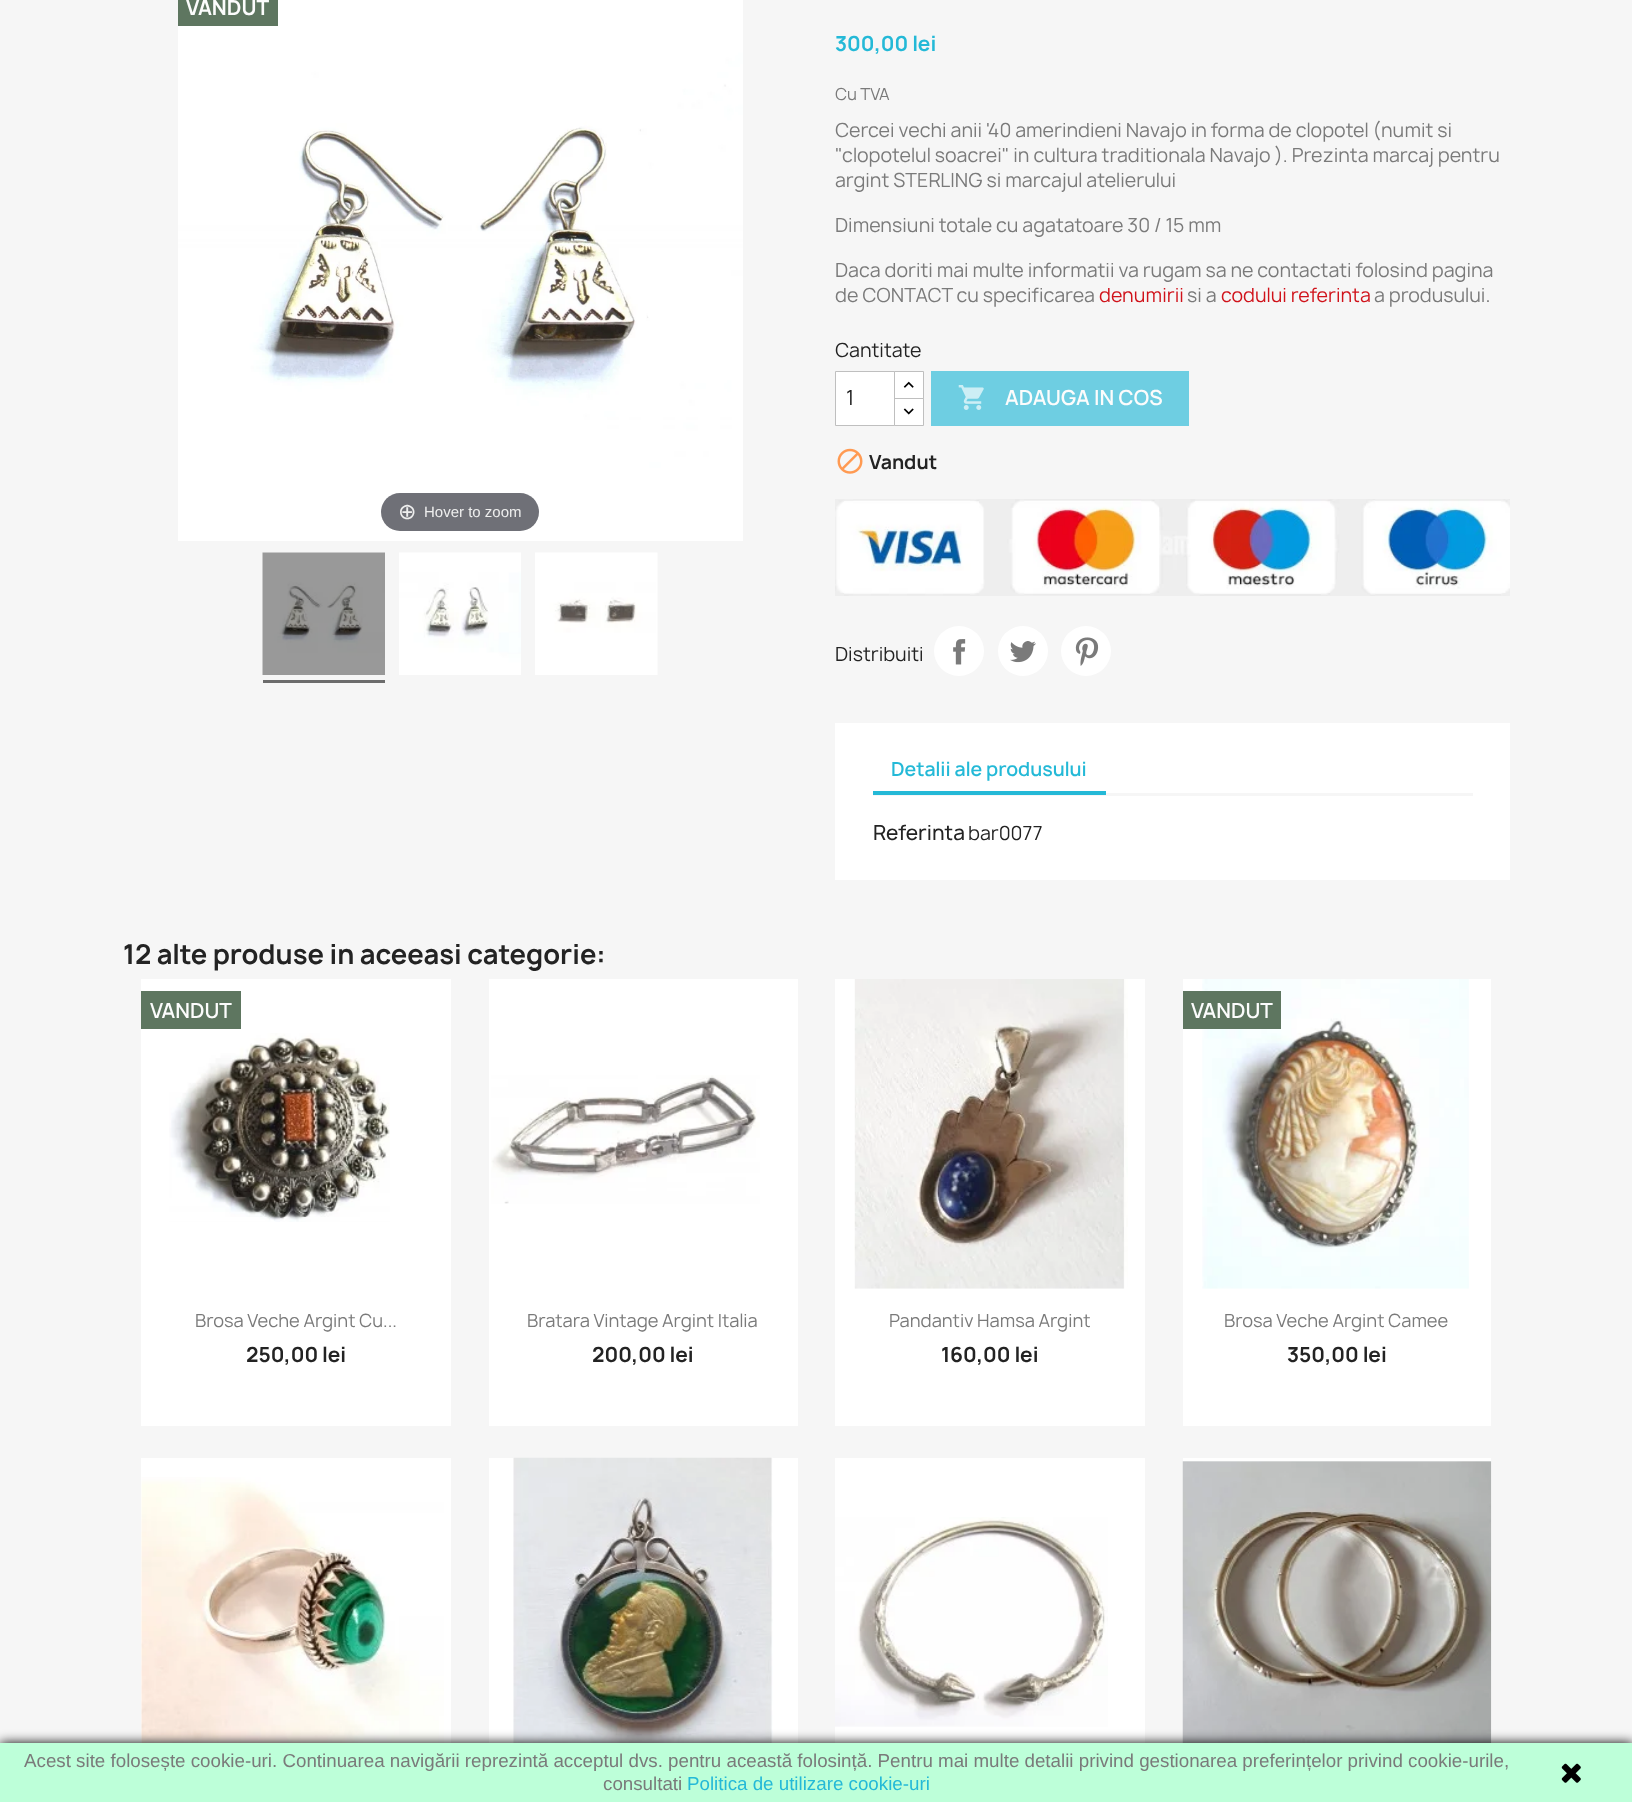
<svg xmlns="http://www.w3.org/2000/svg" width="1632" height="1802">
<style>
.a{font:bold 20px Manrope;fill:#fcfcfc}
.b{font:22px DejaVu Sans;fill:#eee}
.c{font:15px Liberation Sans;fill:#eee}
.d{font:bold 20px Manrope;fill:#24b9d7}
.e{font:16px Manrope;fill:#7a7a7a}
.f{font:18.75px Manrope;fill:#7a7a7a}
.g{font:18.75px Manrope;fill:#d0121a}
.h{font:18.75px Manrope;fill:#232323}
.i{font:20px Manrope;fill:#232323}
.j{font:600 20px Manrope;fill:#fcfcfc}
.k{font:bold 18.75px Manrope;fill:#232323}
.l{font:600 18.75px Manrope;fill:#24b9d7}
.m{font:500 20px Manrope;fill:#232323}
.n{font:bold 26.25px Manrope;fill:#232323}
.o{font:17.5px Manrope;fill:#7a7a7a}
.p{font:bold 20px Manrope;fill:#232323}
.q{font:18.75px Liberation Sans;fill:#7a7a7a}
.r{font:18.75px Liberation Sans;fill:#24b9d7}
</style>
<rect width="100%" height="100%" fill="#f6f6f6"/>
<image href="1.png" x="178" y="0" width="565" height="541"/>
<path fill="#5e7660" d="M178 0h100v26H178z"/>
<rect fill="#6f7077" x="381" y="493" width="158" height="38" rx="19"/>
<image href="2.png" x="262" y="552" width="123" height="123"/>
<path fill="#6c6c6c" d="M263 680h122v3H263z"/>
<image href="3.png" x="399" y="552" width="122" height="123"/>
<image href="4.png" x="535" y="552" width="123" height="123"/>
<path fill="#fff" d="M895 372h28v26H895z"/>
<path fill="none" stroke="#bfbfbf" d="M894.5 371.5h29v28H894.5z"/>
<path fill="#fff" stroke="#bfbfbf" d="M894.5 398.5h29v27H894.5z"/>
<path fill="#fff" stroke="#bfbfbf" d="M835.5 371.5h59v54H835.5z"/>
<image href="5.png" x="903" y="381" width="11" height="7"/>
<image href="6.png" x="903" y="408" width="11" height="7"/>
<path fill="#6ecee2" d="M931 371h258v55H931z"/>
<image href="7.png" x="958" y="385" width="26" height="25"/>
<image href="8.png" x="837" y="448" width="26" height="26"/>
<image href="9.png" x="835" y="499" width="675" height="97"/>
<circle fill="#fff" cx="959" cy="651" r="25"/>
<image href="10.png" x="953" y="639" width="13" height="26"/>
<circle fill="#fff" cx="1023" cy="651" r="25"/>
<image href="11.png" x="1010" y="641" width="26" height="22"/>
<circle fill="#fff" cx="1086" cy="651" r="25"/>
<image href="12.png" x="1075" y="637" width="24" height="29"/>
<path fill="#fff" d="M835 723h675v157H835z"/>
<path fill="#f6f6f6" d="M873 793h600v3H873z"/>
<path fill="#24b9d7" d="M873 791h233v4H873z"/>
<path fill="#fff" d="M141 979h310v447H141z"/>
<path fill="#5e7660" d="M141 991h100v38H141z"/>
<image href="13.png" x="169" y="1033" width="221" height="189"/>
<path fill="#fff" d="M489 979h309v447H489z"/>
<image href="14.png" x="491" y="1075" width="269" height="129"/>
<path fill="#fff" d="M835 979h310v447H835z"/>
<image href="15.png" x="854" y="979" width="274" height="310"/>
<path fill="#fff" d="M1183 979h308v447H1183z"/>
<image href="16.png" x="1202" y="979" width="267" height="310"/>
<path fill="#5e7660" d="M1183 991h98v38H1183z"/>
<path fill="#fff" d="M141 1458h310v285H141z"/>
<image href="17.png" x="141" y="1477" width="303" height="266"/>
<path fill="#fff" d="M489 1458h309v285H489z"/>
<image href="18.png" x="513" y="1457" width="260" height="286"/>
<path fill="#fff" d="M835 1458h310v285H835z"/>
<image href="19.png" x="835" y="1517" width="273" height="210"/>
<path fill="#fff" d="M1183 1458h308v3H1183z"/>
<image href="20.png" x="1182" y="1461" width="310" height="282"/>
<path fill="#000" filter="blur(6px)" d="M0 1743h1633v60H0z"/>
<path fill="#bdffd9" d="M0 1743h1632v59H0z"/>
<image href="21.png" x="1561" y="1763" width="20" height="20"/>
<text class="a" x="186" y="15">VANDUT</text>
<text class="b" x="398" y="519">⊕</text>
<text class="c" x="424" y="517">Hover to zoom</text>
<text class="d" x="835" y="51">300,00 lei</text>
<text class="e" x="835" y="100">Cu TVA</text>
<text class="f" x="835" y="137">Cercei vechi anii '40 amerindieni Navajo in forma de clopotel (numit si</text>
<text class="f" x="835" y="162">"clopotelul soacrei" in cultura traditionala Navajo ). Prezinta marcaj pentru</text>
<text class="f" x="835" y="187">argint STERLING si marcajul atelierului</text>
<text class="f" x="835" y="232">Dimensiuni totale cu agatatoare 30 / 15 mm</text>
<text class="f" x="835" y="277">Daca doriti mai multe informatii va rugam sa ne contactati folosind pagina</text>
<text class="f" x="835" y="302">de CONTACT cu specificarea</text>
<text class="g" x="1099" y="302">denumirii</text>
<text class="f" x="1187" y="302">si a</text>
<text class="g" x="1221" y="302">codului referinta</text>
<text class="f" x="1374" y="302">a produsului.</text>
<text class="h" x="835" y="357">Cantitate</text>
<text class="i" x="846" y="405">1</text>
<text class="j" x="1005" y="405">ADAUGA IN COS</text>
<text class="k" x="869" y="469">Vandut</text>
<text class="h" x="835" y="661">Distribuiti</text>
<text class="l" x="891" y="776">Detalii ale produsului</text>
<text class="m" x="873" y="840">Referinta</text>
<text class="h" x="968" y="840">bar0077</text>
<text class="n" x="123" y="964">12 alte produse in aceeasi categorie:</text>
<text class="j" x="150" y="1018">VANDUT</text>
<text class="o" x="195" y="1327">Brosa Veche Argint Cu...</text>
<text class="p" x="246" y="1362">250,00 lei</text>
<text class="o" x="527" y="1327">Bratara Vintage Argint Italia</text>
<text class="p" x="592" y="1362">200,00 lei</text>
<text class="o" x="889" y="1327">Pandantiv Hamsa Argint</text>
<text class="p" x="941" y="1362">160,00 lei</text>
<text class="j" x="1191" y="1018">VANDUT</text>
<text class="o" x="1224" y="1327">Brosa Veche Argint Camee</text>
<text class="p" x="1287" y="1362">350,00 lei</text>
<text class="q" x="24" y="1767">Acest site folosește cookie-uri. Continuarea navigării reprezintă acceptul dvs. pentru această folosință. Pentru mai multe detalii privind gestionarea preferințelor privind cookie-urile,</text>
<text class="q" x="603" y="1790">consultati</text>
<text class="r" x="687" y="1790">Politica de utilizare cookie-uri</text>
</svg>
